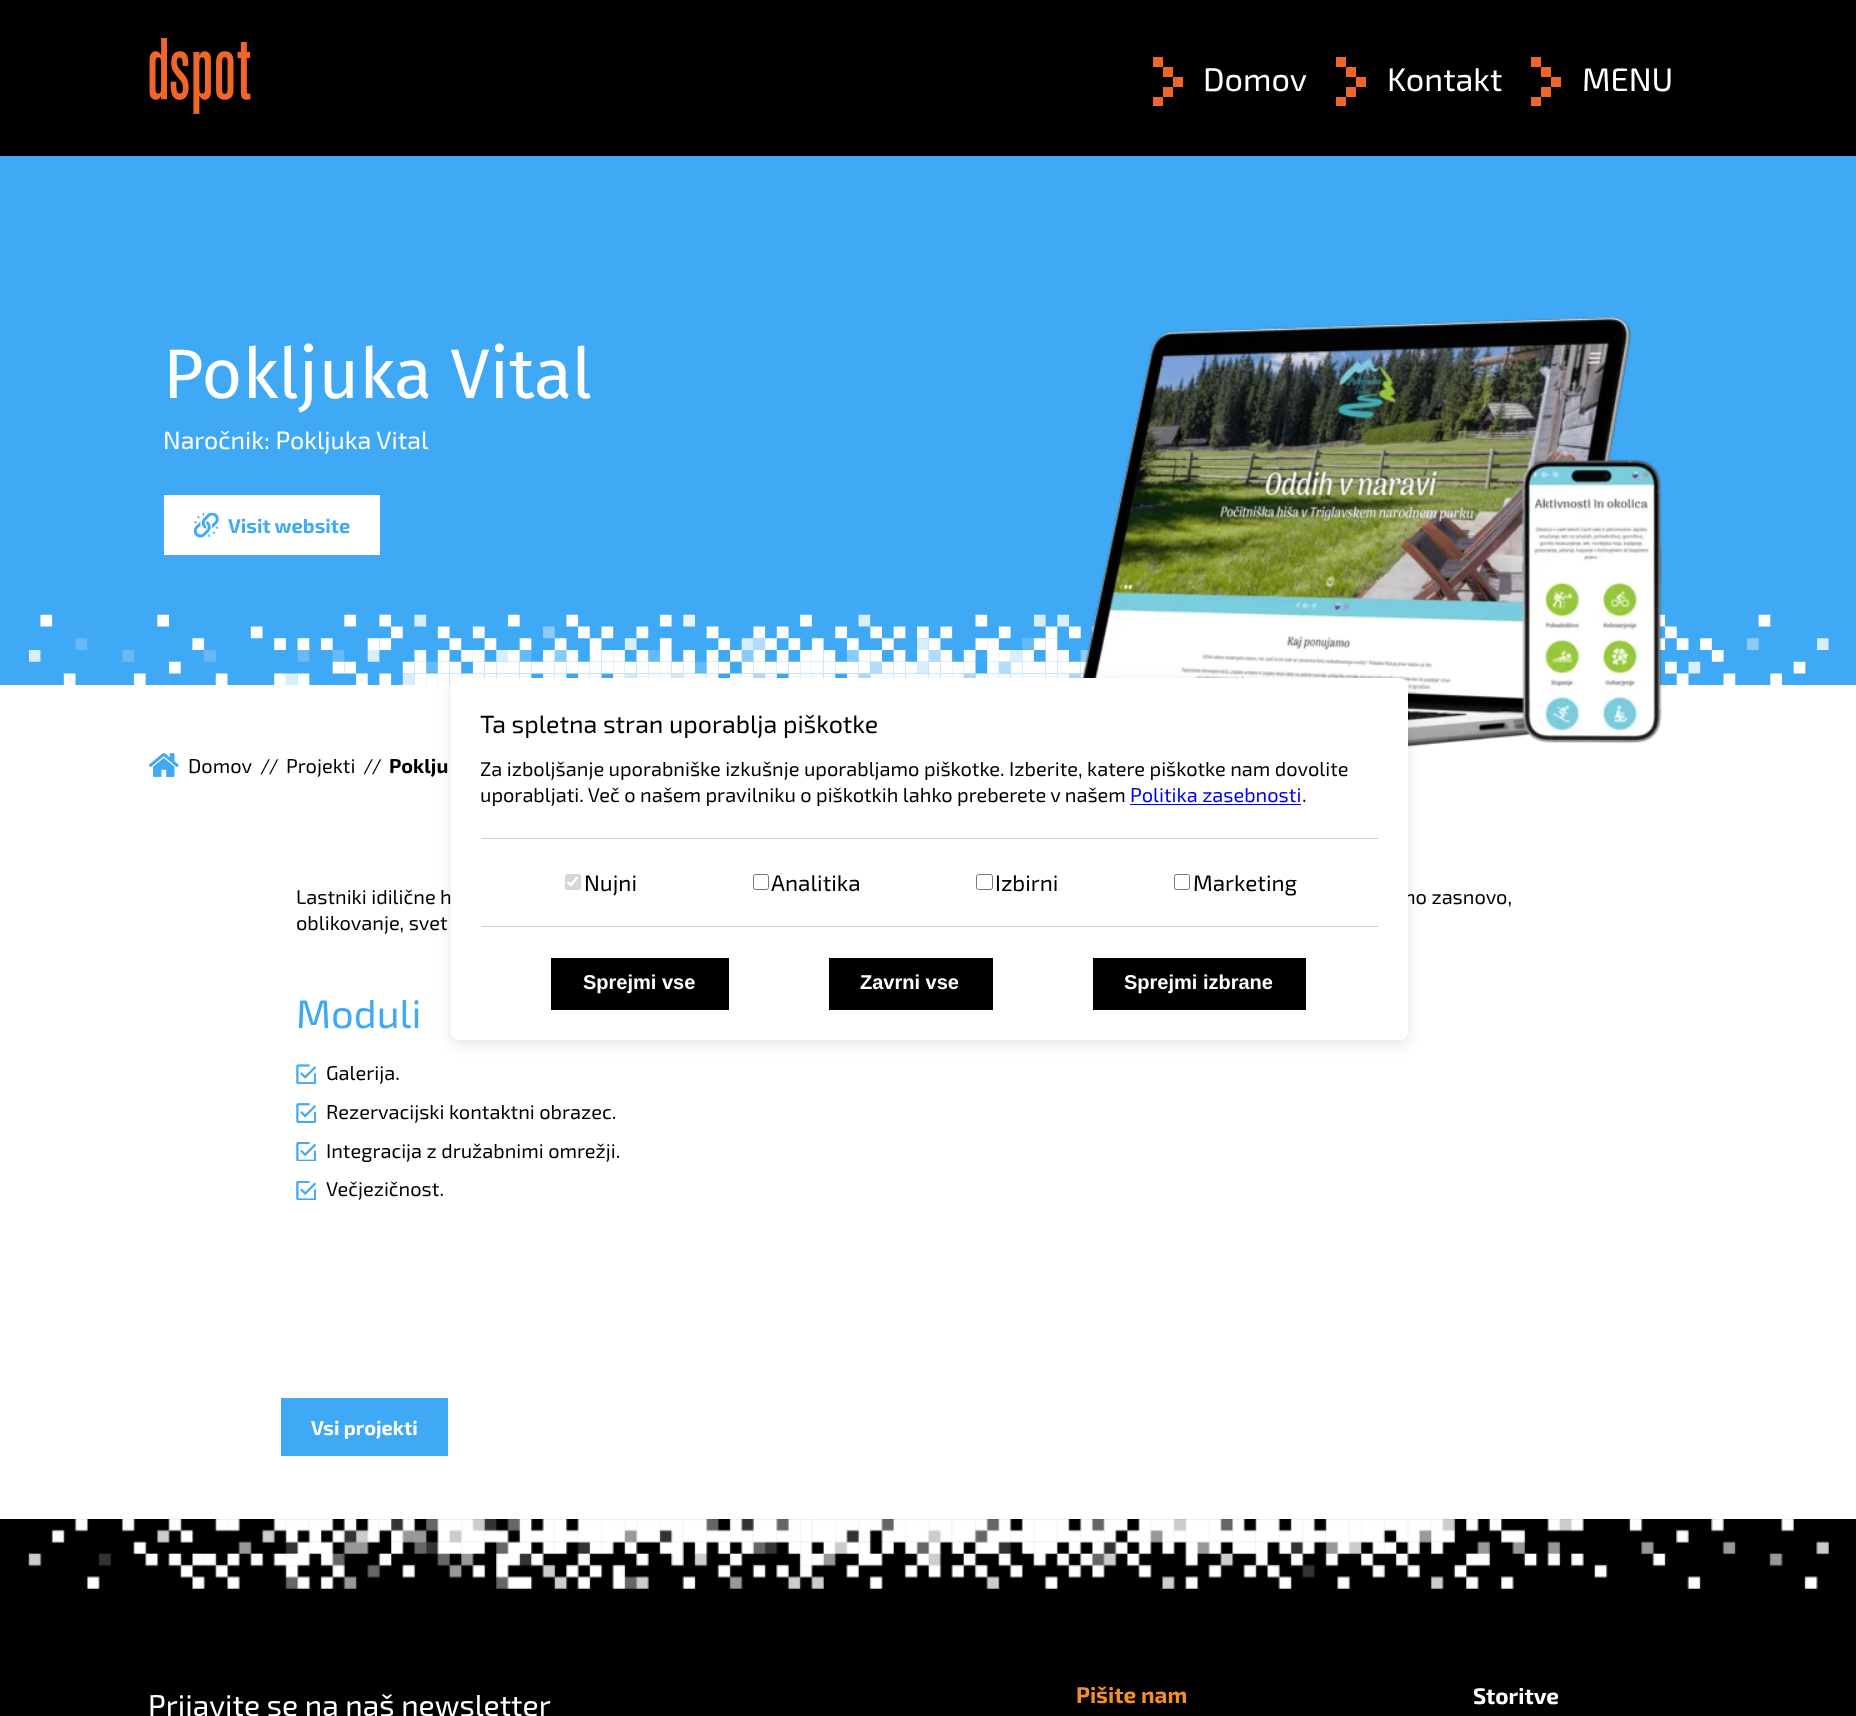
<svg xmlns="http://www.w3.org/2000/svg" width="1856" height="1716">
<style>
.a{font:32.5px 'Exo 2';fill:#fff}
.b{font:70px Fira Sans;fill:#fff}
.c{font:25px 'Exo 2';fill:#fff}
.d{font:bold 20px 'Exo 2';fill:#3fa9f5}
.e{font:20px 'Exo 2';fill:#000}
.f{font:bold 20px 'Exo 2';fill:#000}
.g{font:40px 'Exo 2';fill:#3fa9f5}
.h{font:bold 20px 'Exo 2';fill:#fff}
.i{font:25px 'Exo 2';fill:#000}
.j{font:20px 'Exo 2';fill:#00e}
.k{font:22.5px 'Exo 2';fill:#000}
.l{font:bold 20px Liberation Sans;fill:#fff}
.m{font:30px 'Exo 2';fill:#fff}
.n{font:bold 22.5px 'Exo 2';fill:#f28f29}
.o{font:bold 22.5px 'Exo 2';fill:#fff}
</style>
<rect width="100%" height="100%" fill="#fff"/>
<path fill="#000" d="M0 0h1856v156H0z"/>
<image href="1.png" x="149" y="38" width="102" height="76"/>
<path fill="#f06628" d="M1163 67h10v10H1163z"/>
<path fill="#f06628" d="M1153 57h10v10H1153z"/>
<path fill="#f06628" d="M1173 77h10v10H1173z"/>
<path fill="#f06628" d="M1163 87h10v10H1163z"/>
<path fill="#f06628" d="M1153 97h10v9H1153z"/>
<path fill="#f06628" d="M1346 67h10v10H1346z"/>
<path fill="#f06628" d="M1336 57h10v10H1336z"/>
<path fill="#f06628" d="M1356 77h10v10H1356z"/>
<path fill="#f06628" d="M1346 87h10v10H1346z"/>
<path fill="#f06628" d="M1336 97h10v9H1336z"/>
<path fill="#f06628" d="M1541 67h10v10H1541z"/>
<path fill="#f06628" d="M1531 57h10v10H1531z"/>
<path fill="#f06628" d="M1551 77h10v10H1551z"/>
<path fill="#f06628" d="M1541 87h10v10H1541z"/>
<path fill="#f06628" d="M1531 97h10v9H1531z"/>
<path fill="#3fa9f5" d="M0 156h1856v529H0z"/>
<path fill="#fff" d="M164 495h216v60H164z"/>
<image href="2.png" x="194" y="513" width="25" height="25"/>
<image href="4.png" x="29" y="614" width="1800" height="71"/>
<image href="3.png" x="1081" y="316" width="581" height="431"/>
<image href="5.png" x="149" y="753" width="30" height="24"/>
<image href="6.png" x="296" y="1064" width="20" height="20"/>
<image href="7.png" x="296" y="1103" width="20" height="20"/>
<image href="8.png" x="296" y="1142" width="20" height="19"/>
<image href="9.png" x="296" y="1181" width="20" height="19"/>
<path fill="#3fa9f5" d="M281 1398h167v58H281z"/>
<rect fill="#0000001a" filter="blur(7.5px)" x="451" y="683" width="957" height="362" rx="8"/>
<path fill="#000" d="M0 1519h1856v197H0z"/>
<image href="10.png" x="28" y="1519" width="1801" height="70"/>
<text class="a" x="1203" y="91">Domov</text>
<text class="a" x="1387" y="91">Kontakt</text>
<text class="a" x="1582" y="91">MENU</text>
<text class="b" x="163" y="398">Pokljuka Vital</text>
<text class="c" x="163" y="449">Naročnik: Pokljuka Vital</text>
<text class="d" x="228" y="533">Visit website</text>
<text class="e" x="188" y="773">Domov</text>
<text class="e" x="260" y="773">//</text>
<text class="e" x="286" y="773">Projekti</text>
<text class="e" x="363" y="773">//</text>
<text class="f" x="389" y="773">Poklju</text>
<text class="e" x="296" y="904">Lastniki idilične h</text>
<text class="e" x="1404" y="904">no zasnovo,</text>
<text class="e" x="296" y="930">oblikovanje, svet</text>
<text class="g" x="296" y="1028">Moduli</text>
<text class="e" x="326" y="1080">Galerija.</text>
<text class="e" x="326" y="1119">Rezervacijski kontaktni obrazec.</text>
<text class="e" x="326" y="1158">Integracija z družabnimi omrežji.</text>
<text class="e" x="326" y="1196">Večjezičnost.</text>
<text class="h" x="311" y="1435">Vsi projekti</text>
<rect fill="#fff" x="451" y="678" width="957" height="362" rx="8"/>
<path fill="#d1d1d1" d="M481 838h897v1H481z"/>
<text class="i" x="480" y="733">Ta spletna stran uporablja piškotke</text>
<text class="e" x="480" y="776">Za izboljšanje uporabniške izkušnje uporabljamo piškotke. Izberite, katere piškotke nam dovolite</text>
<text class="e" x="480" y="802">uporabljati. Več o našem pravilniku o piškotkih lahko preberete v našem</text>
<text class="j" x="1130" y="802">Politika zasebnosti</text>
<path fill="#00e" d="M1130 804h171v1H1130z"/>
<text class="e" x="1302" y="802">.</text>
<path fill="#d1d1d1" d="M481 926h897v1H481z"/>
<rect fill="#d6d6d6" x="565" y="874" width="16" height="16" rx="2.5"/>
<path fill="none" stroke="#fff" stroke-width="2.6" d="M567.5 882l3.5 3l6.5-8"/>
<text class="k" x="584" y="891">Nujni</text>
<rect fill="none" stroke="#767676" x="753.5" y="874.5" width="15" height="15" rx="2"/>
<text class="k" x="771" y="891">Analitika</text>
<rect fill="none" stroke="#767676" x="976.5" y="874.5" width="16" height="15" rx="2"/>
<text class="k" x="995" y="891">Izbirni</text>
<rect fill="none" stroke="#767676" x="1174.5" y="874.5" width="15" height="15" rx="2"/>
<text class="k" x="1193" y="891">Marketing</text>
<path fill="#000" d="M551 958h178v52H551z"/>
<text class="l" x="583" y="989">Sprejmi vse</text>
<path fill="#000" d="M829 958h164v52H829z"/>
<text class="l" x="860" y="989">Zavrni vse</text>
<path fill="#000" d="M1093 958h213v52H1093z"/>
<text class="l" x="1124" y="989">Sprejmi izbrane</text>
<text class="m" x="148" y="1716">Prijavite se na naš newsletter</text>
<text class="n" x="1076" y="1703">Pišite nam</text>
<text class="o" x="1473" y="1704">Storitve</text>
</svg>
